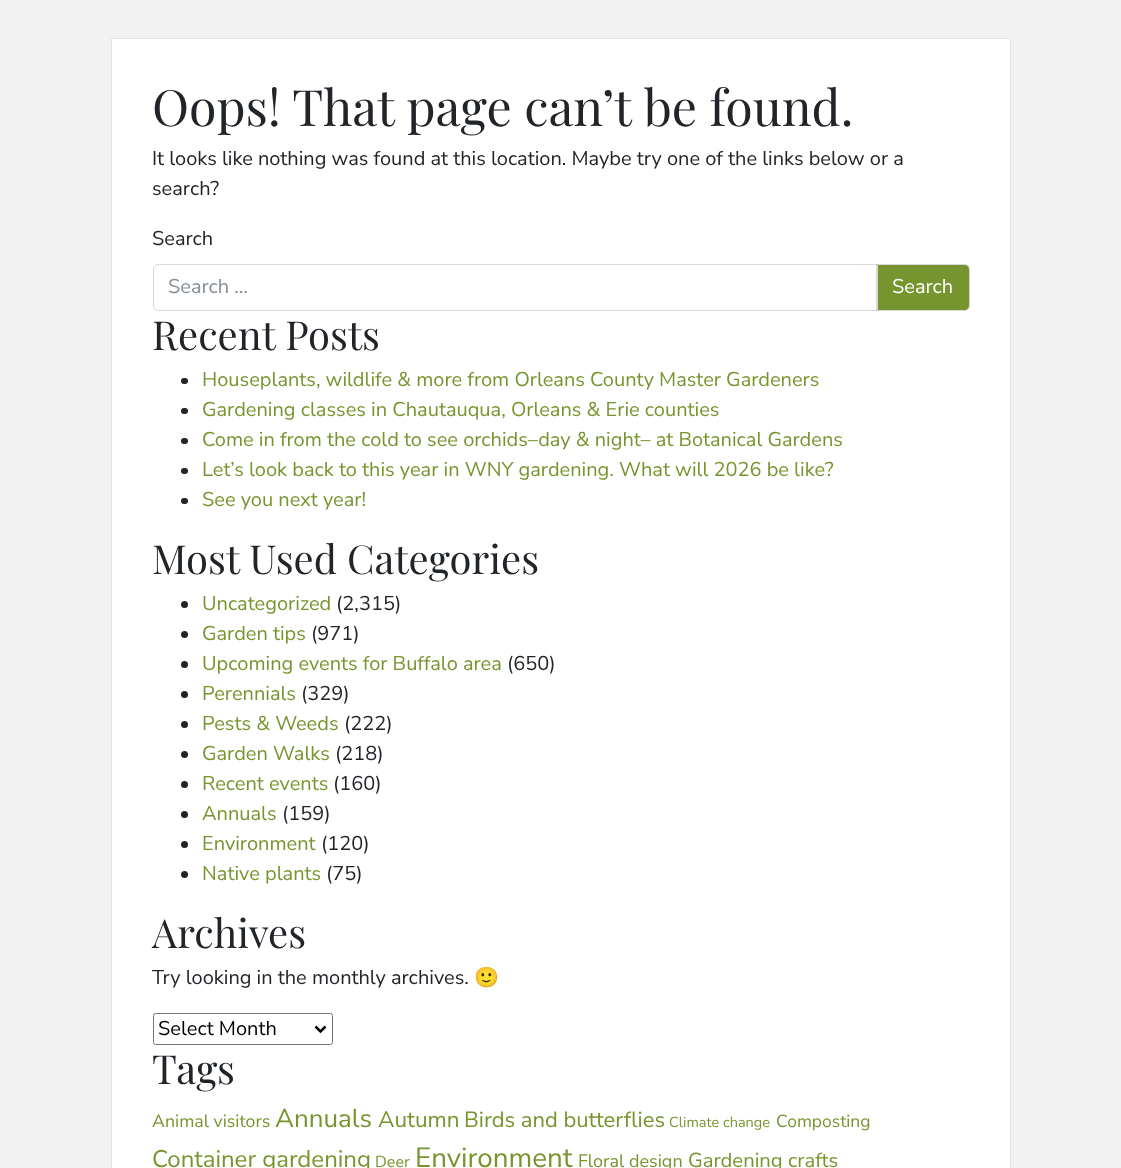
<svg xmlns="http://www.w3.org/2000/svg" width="1121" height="1168">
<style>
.a{font:50px Playfair Display;fill:#212529}
.b{font:20px Nunito Sans;fill:#212529}
.c{font:20px Nunito Sans;fill:#868e96}
.d{font:20px Nunito Sans;fill:#fff}
.e{font:40px Playfair Display;fill:#212529}
.f{font:20px Nunito Sans;fill:#76952e}
.g{font:20px Noto Color Emoji;fill:#212529}
.h{font:20px Nunito Sans;fill:#000}
.i{font:17.75px Nunito Sans;fill:#76952e}
.j{font:26px Nunito Sans;fill:#76952e}
.k{font:22.5px Nunito Sans;fill:#76952e}
.l{font:22px Nunito Sans;fill:#76952e}
.m{font:14.5px Nunito Sans;fill:#76952e}
.n{font:17.5px Nunito Sans;fill:#76952e}
.o{font:24px Nunito Sans;fill:#76952e}
.p{font:16px Nunito Sans;fill:#76952e}
.q{font:27.75px Nunito Sans;fill:#76952e}
.r{font:18px Nunito Sans;fill:#76952e}
.s{font:20.25px Nunito Sans;fill:#76952e}
</style>
<rect width="100%" height="100%" fill="#f2f2f2"/>
<path fill="#fff" stroke="#e3e3e3" d="M111.5 38.5h899v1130H111.5z"/>
<path fill="none" stroke="#d9d9d9" d="M158 264.5h719.5v46h-719.5c-2.5 0-4.5-2-4.5-4.5v-37c0-2.5 2-4.5 4.5-4.5z"/>
<path fill="#76952e" d="M878 265h87c2 0 4 2 4 4v37c0 2-2 4-4 4h-87z"/>
<path fill="none" stroke="#00000026" d="M876.5 264.5h88.5c2.5 0 4.5 2 4.5 4.5v37c0 2.5-2 4.5-4.5 4.5h-88.5z"/>
<rect fill="#212529" x="181" y="378" width="7" height="6" rx="3"/>
<rect fill="#212529" x="181" y="408" width="7" height="6" rx="3"/>
<rect fill="#212529" x="181" y="438" width="7" height="6" rx="3"/>
<rect fill="#212529" x="181" y="468" width="7" height="6" rx="3"/>
<rect fill="#212529" x="181" y="498" width="7" height="6" rx="3"/>
<circle fill="#212529" cx="184.5" cy="604.5" r="3.5"/>
<circle fill="#212529" cx="184.5" cy="634.5" r="3.5"/>
<circle fill="#212529" cx="184.5" cy="664.5" r="3.5"/>
<circle fill="#212529" cx="184.5" cy="694.5" r="3.5"/>
<circle fill="#212529" cx="184.5" cy="724.5" r="3.5"/>
<circle fill="#212529" cx="184.5" cy="754.5" r="3.5"/>
<circle fill="#212529" cx="184.5" cy="784.5" r="3.5"/>
<circle fill="#212529" cx="184.5" cy="814.5" r="3.5"/>
<circle fill="#212529" cx="184.5" cy="844.5" r="3.5"/>
<circle fill="#212529" cx="184.5" cy="874.5" r="3.5"/>
<rect fill="none" stroke="#767676" x="153.5" y="1013.5" width="179" height="31" rx="2"/>
<path fill="none" stroke="#000" stroke-width="2.5" d="M315.5 1026.5l5 5l5-5"/>
<text class="a" x="152" y="126">Oops! That page can’t be found.</text>
<text class="b" x="152" y="165">It looks like nothing was found at this location. Maybe try one of the links below or a</text>
<text class="b" x="152" y="195">search?</text>
<text class="b" x="152" y="245">Search</text>
<text class="c" x="168" y="293">Search …</text>
<text class="d" x="892" y="293">Search</text>
<text class="e" x="152" y="350">Recent Posts</text>
<text class="f" x="202" y="386">Houseplants, wildlife &amp; more from Orleans County Master Gardeners</text>
<text class="f" x="202" y="416">Gardening classes in Chautauqua, Orleans &amp; Erie counties</text>
<text class="f" x="202" y="446">Come in from the cold to see orchids–day &amp; night– at Botanical Gardens</text>
<text class="f" x="202" y="476">Let’s look back to this year in WNY gardening. What will 2026 be like?</text>
<text class="f" x="202" y="506">See you next year!</text>
<text class="e" x="152" y="574">Most Used Categories</text>
<text class="f" x="202" y="610">Uncategorized</text>
<text class="b" x="336" y="610">(2,315)</text>
<text class="f" x="202" y="640">Garden tips</text>
<text class="b" x="311" y="640">(971)</text>
<text class="f" x="202" y="670">Upcoming events for Buffalo area</text>
<text class="b" x="507" y="670">(650)</text>
<text class="f" x="202" y="700">Perennials</text>
<text class="b" x="301" y="700">(329)</text>
<text class="f" x="202" y="730">Pests &amp; Weeds</text>
<text class="b" x="344" y="730">(222)</text>
<text class="f" x="202" y="760">Garden Walks</text>
<text class="b" x="335" y="760">(218)</text>
<text class="f" x="202" y="790">Recent events</text>
<text class="b" x="333" y="790">(160)</text>
<text class="f" x="202" y="820">Annuals</text>
<text class="b" x="282" y="820">(159)</text>
<text class="f" x="202" y="850">Environment</text>
<text class="b" x="321" y="850">(120)</text>
<text class="f" x="202" y="880">Native plants</text>
<text class="b" x="326" y="880">(75)</text>
<text class="e" x="152" y="948">Archives</text>
<text class="b" x="152" y="984">Try looking in the monthly archives.</text>
<text class="g" x="474" y="984">🙂</text>
<text class="h" x="158" y="1035">Select Month</text>
<text class="e" x="152" y="1084">Tags</text>
<text class="i" x="152" y="1127">Animal visitors</text>
<text class="j" x="275" y="1127">Annuals</text>
<text class="k" x="378" y="1127">Autumn</text>
<text class="l" x="464" y="1127">Birds and butterflies</text>
<text class="m" x="669" y="1127">Climate change</text>
<text class="n" x="776" y="1127">Composting</text>
<text class="o" x="152" y="1167">Container gardening</text>
<text class="p" x="375" y="1167">Deer</text>
<text class="q" x="415" y="1167">Environment</text>
<text class="r" x="578" y="1167">Floral design</text>
<text class="s" x="688" y="1167">Gardening crafts</text>
</svg>
